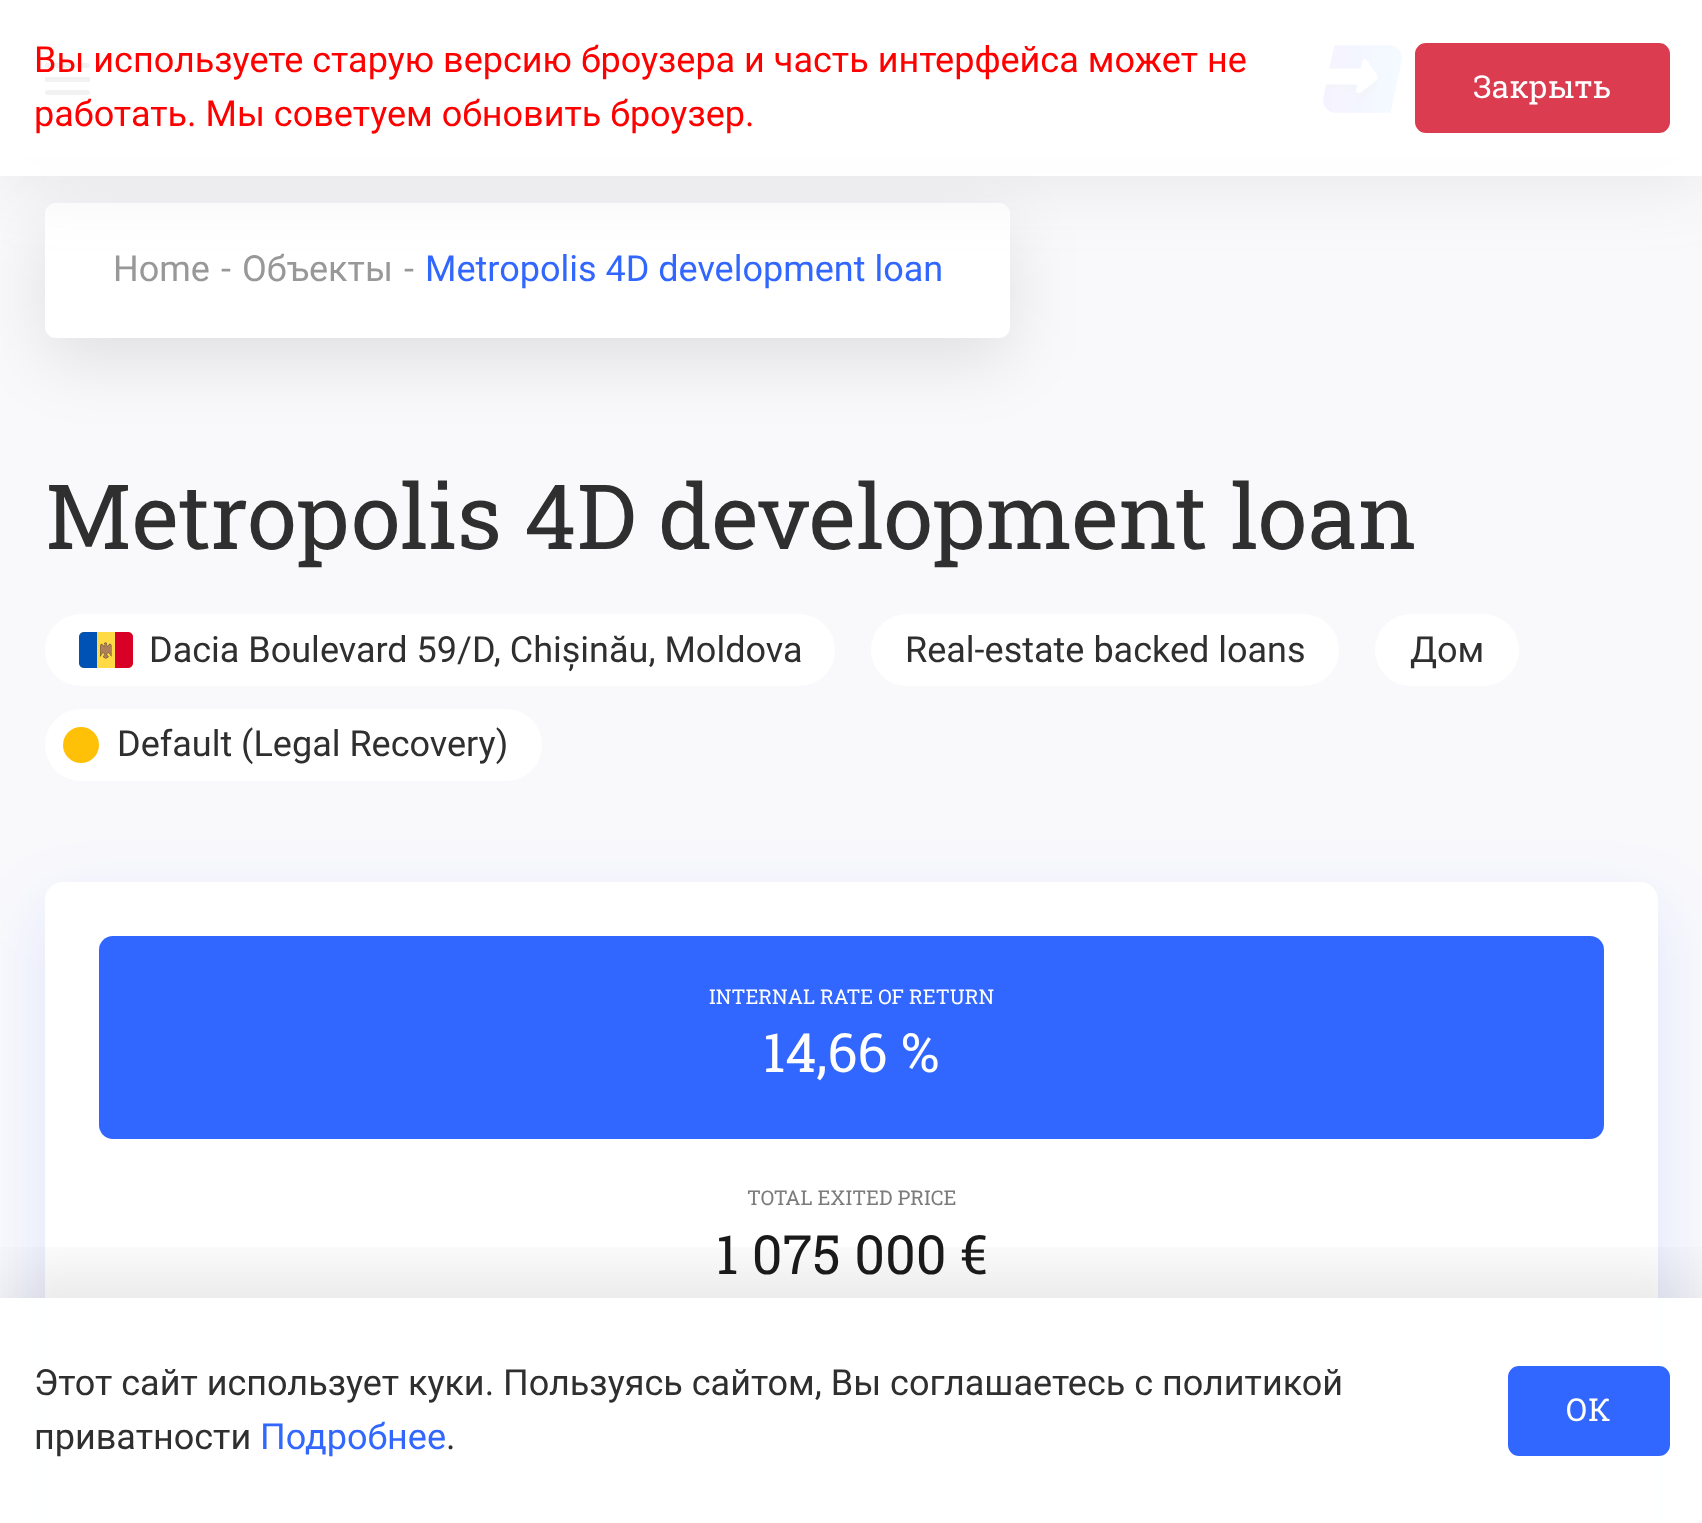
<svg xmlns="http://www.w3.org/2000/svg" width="1702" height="1523">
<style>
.a{font:36px Roboto;fill:#f00}
.b{font:31.5px Roboto Slab;fill:#fff}
.c{font:36px Roboto;fill:#989898}
.d{font:36px Roboto;fill:#3167ff}
.e{font:90px Roboto Slab;fill:#302f2f}
.f{font:36px Roboto;fill:#302f2f}
.g{font:20.25px Roboto Slab;fill:#fff}
.h{font:54px Roboto Slab;fill:#fff}
.i{font:20.25px Roboto Slab;fill:#7c7c7c}
.j{font:54px Roboto Slab;fill:#1a1a1a}
</style>
<defs>
<clipPath id="clip1"><path d="M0 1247h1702v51H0z"/></clipPath>
</defs>
<rect width="100%" height="100%" fill="#f9f9fc"/>
<rect fill="#0000001a" filter="blur(34px)" x="45" y="225" width="965" height="135" rx="11"/>
<rect fill="#fff" x="45" y="203" width="965" height="135" rx="11"/>
<path fill="#9d9d9d33" filter="blur(34px)" d="M0 23h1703v157H0z"/>
<path fill="#fff" d="M0 0h1702v158H0z"/>
<path fill="#000" d="M45 77h45v5H45z"/>
<rect fill="#000" x="45" y="63" width="45" height="5" rx="2.5"/>
<rect fill="#000" x="45" y="90" width="45" height="5" rx="2.5"/>
<image href="1.png" x="1323" y="45" width="79" height="68"/>
<path fill="#fffffff2" d="M0 45h1702v131H0z"/>
<rect fill="#db3c50" stroke="#db3c50" stroke-width="2" x="1416" y="44" width="253" height="88" rx="10"/>
<rect fill="#fff" x="45" y="614" width="790" height="72" rx="36"/>
<image href="2.png" x="79" y="632" width="54" height="36"/>
<rect fill="#fff" x="871" y="614" width="468" height="72" rx="36"/>
<rect fill="#fff" x="1375" y="614" width="144" height="72" rx="36"/>
<rect fill="#fff" x="45" y="709" width="497" height="72" rx="36"/>
<circle fill="#ffc107" cx="81" cy="745" r="18"/>
<rect fill="#023aff1a" filter="blur(34px)" x="45" y="905" width="1613" height="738" rx="18"/>
<rect fill="#fff" x="45" y="882" width="1613" height="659" rx="18"/>
<rect fill="#3167ff" x="99" y="936" width="1505" height="203" rx="14"/>
<g clip-path="url(#clip1)">
<path fill="#0000001a" filter="blur(34px)" d="M0 1276h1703v225H0z"/>
</g>
<path fill="#fffffff2" d="M0 1298h1702v225H0z"/>
<rect fill="#3167ff" stroke="#3167ff" stroke-width="2" x="1509" y="1367" width="160" height="88" rx="10"/>
<text class="a" x="34" y="72">Вы используете старую версию броузера и часть интерфейса может не</text>
<text class="a" x="34" y="126">работать. Мы советуем обновить броузер.</text>
<text class="b" x="1473" y="98">Закрыть</text>
<text class="c" x="113" y="281">Home</text>
<text class="c" x="221" y="281">-</text>
<text class="c" x="242" y="281">Объекты</text>
<text class="c" x="404" y="281">-</text>
<text class="d" x="425" y="281">Metropolis 4D development loan</text>
<text class="e" x="45" y="549">Metropolis 4D development loan</text>
<text class="f" x="149" y="662">Dacia Boulevard 59/D, Chișinău, Moldova</text>
<text class="f" x="905" y="662">Real-estate backed loans</text>
<text class="f" x="1410" y="662">Дом</text>
<text class="f" x="117" y="756">Default (Legal Recovery)</text>
<text class="g" x="709" y="1004">INTERNAL RATE OF RETURN</text>
<text class="h" x="763" y="1072">14,66 %</text>
<text class="i" x="747" y="1205">TOTAL EXITED PRICE</text>
<text class="j" x="716" y="1274">1 075 000 €</text>
<text class="f" x="34" y="1395">Этот сайт использует куки. Пользуясь сайтом, Вы соглашаетесь с политикой</text>
<text class="f" x="34" y="1449">приватности</text>
<text class="d" x="260" y="1449">Подробнее</text>
<text class="f" x="446" y="1449">.</text>
<text class="b" x="1566" y="1421">ОК</text>
</svg>
